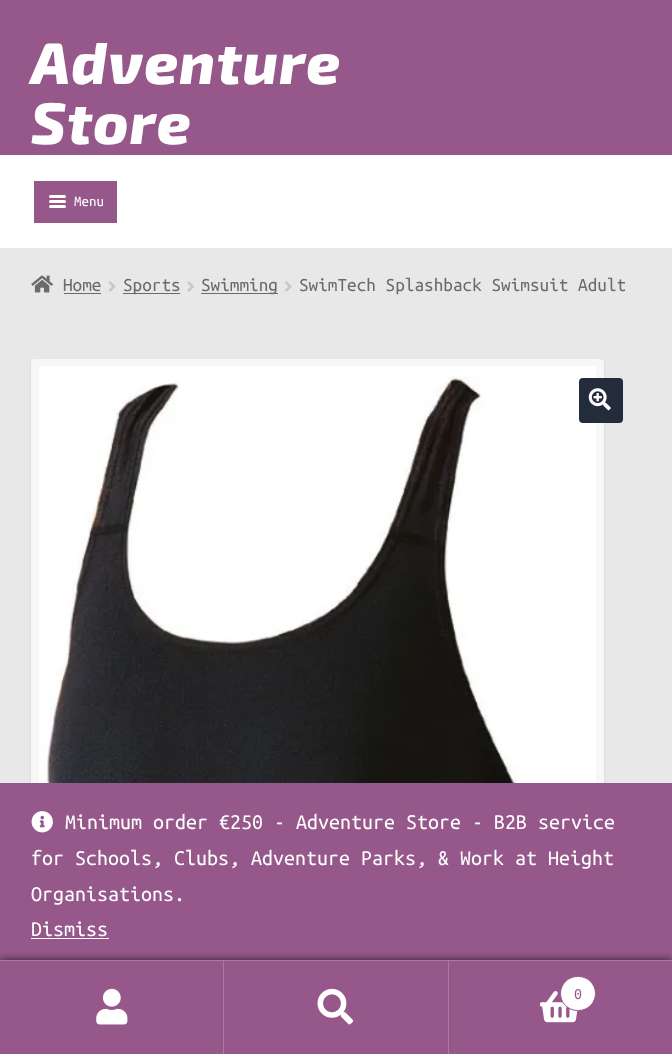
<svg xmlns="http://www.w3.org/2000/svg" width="672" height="1054">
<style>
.a{font:italic 800 58.75px 'Exo 2';letter-spacing:1.25px;fill:#fff}
.b{font:15px Ubuntu Mono;fill:#fff}
.c{font:19.25px Ubuntu Mono;fill:#6b6b6b}
.d{font:16px Ubuntu Mono;fill:#96588a}
.e{font:22px Ubuntu Mono;fill:#fff}
</style>
<rect width="100%" height="100%" fill="#e8e8e8"/>
<path fill="#96588a" d="M0 0h672v155H0z"/>
<path fill="#fff" d="M0 155h672v93H0z"/>
<rect fill="#96588a" stroke="#fff" stroke-width="3" x="32.5" y="179.5" width="86" height="45" rx="1"/>
<rect fill="#fff" x="49" y="195" width="17" height="3" rx="1.5"/>
<rect fill="#fff" x="49" y="200" width="17" height="3" rx="1.5"/>
<rect fill="#fff" x="49" y="205" width="17" height="3" rx="1.5"/>
<image href="1.png" x="31" y="275" width="22" height="18"/>
<path fill="#6b6b6b" d="M64 293h37v1H64z"/>
<image href="2.png" x="108" y="281" width="8" height="11"/>
<path fill="#6b6b6b" d="M123 293h57v1H123z"/>
<image href="3.png" x="187" y="281" width="7" height="11"/>
<path fill="#6b6b6b" d="M201 293h77v1H201z"/>
<image href="4.png" x="285" y="281" width="7" height="11"/>
<rect fill="#0000001a" filter="blur(1px)" x="31" y="360" width="573" height="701" rx="4"/>
<rect fill="#f7f7f7" x="31" y="359" width="573" height="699" rx="4"/>
<image href="5.png" x="39" y="366" width="557" height="417"/>
<rect fill="#232c3a" x="579" y="378" width="44" height="45" rx="4"/>
<image href="6.png" x="588" y="388" width="23" height="23"/>
<path fill="#96588a" d="M0 783h672v177H0z"/>
<path fill="#000000b3" filter="blur(4px)" d="M0 960h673v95H0z"/>
<path fill="#ab79a1" d="M0 960h672v1H0z"/>
<path fill="#96588a" d="M0 961h223v93H0z"/>
<path fill="#ab79a1" d="M223 961h1v93H223z"/>
<image href="7.png" x="96" y="988" width="32" height="37"/>
<path fill="#96588a" d="M224 961h224v93H224z"/>
<path fill="#ab79a1" d="M448 961h1v93H448z"/>
<image href="8.png" x="317" y="988" width="37" height="37"/>
<path fill="#96588a" d="M449 961h223v93H449z"/>
<image href="9.png" x="540" y="991" width="38" height="32"/>
<rect fill="#fff" stroke="#96588a" x="560.5" y="976.5" width="35" height="34" rx="17"/>
<image href="10.png" x="31" y="811" width="22" height="22"/>
<path fill="#fff" d="M31 938h78v1H31z"/>
<text class="a" x="31" y="84">Adventure</text>
<text class="a" x="31" y="144">Store</text>
<text class="b" x="74" y="206">Menu</text>
<text class="c" x="63" y="291">Home</text>
<text class="c" x="123" y="291">Sports</text>
<text class="c" x="201" y="291">Swimming</text>
<text class="c" x="299" y="291">SwimTech Splashback Swimsuit Adult</text>
<text class="d" x="574" y="999">0</text>
<text class="e" x="65" y="829">Minimum order €250 - Adventure Store - B2B service</text>
<text class="e" x="31" y="865">for Schools, Clubs, Adventure Parks, &amp; Work at Height</text>
<text class="e" x="31" y="901">Organisations.</text>
<text class="e" x="31" y="936">Dismiss</text>
</svg>
